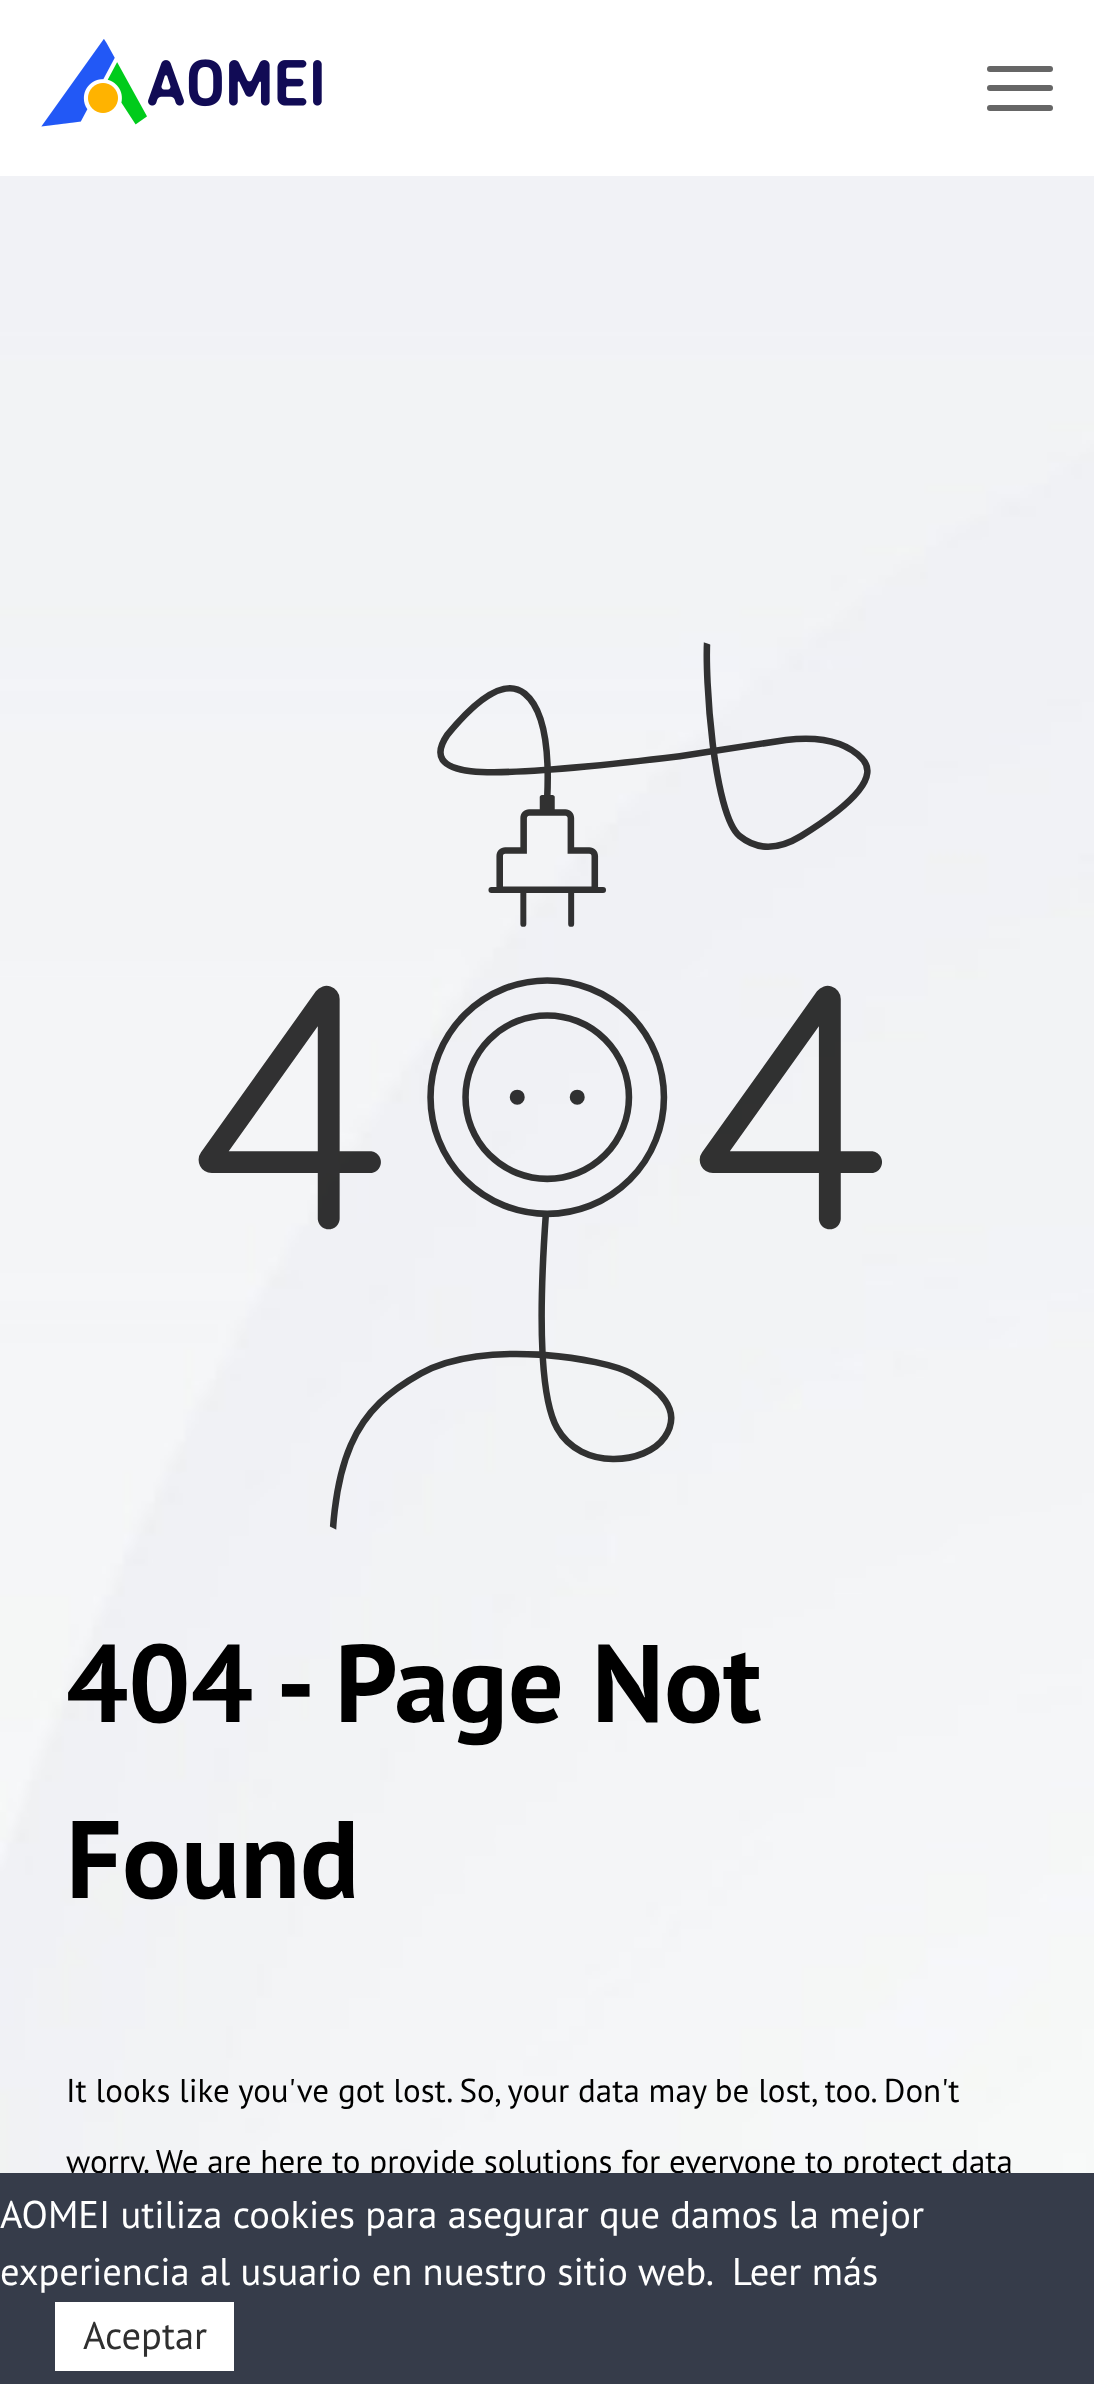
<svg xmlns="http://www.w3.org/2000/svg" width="1094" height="2384">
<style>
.a{font:bold 110px PT Sans;fill:#000}
.b{font:33px PT Sans;fill:#000}
.c{font:38.5px PT Sans;fill:#fff}
.d{font:38.5px PT Sans;fill:#2f2f2f}
</style>
<rect width="100%" height="100%" fill="#fff"/>
<image href="1.png" x="41" y="39" width="281" height="88"/>
<rect fill="#666" x="987" y="66" width="66" height="6" rx="3"/>
<rect fill="#666" x="987" y="85" width="66" height="6" rx="3"/>
<rect fill="#666" x="987" y="105" width="66" height="6" rx="3"/>
<image href="2.png" x="0" y="176" width="1094" height="1997"/>
<image href="3.png" x="198" y="642" width="684" height="888"/>
<text class="a" x="66" y="1722">404 - Page Not</text>
<text class="a" x="66" y="1898">Found</text>
<text class="b" x="66" y="2102">It looks like you've got lost. So, your data may be lost, too. Don't</text>
<text class="b" x="66" y="2173">worry. We are here to provide solutions for everyone to protect data</text>
<path fill="#363c4a" d="M0 2173h1094v211H0z"/>
<text class="c" x="0" y="2228">AOMEI utiliza cookies para asegurar que damos la mejor</text>
<text class="c" x="0" y="2285">experiencia al usuario en nuestro sitio web.</text>
<text class="c" x="732" y="2285">Leer más</text>
<path fill="#fff" d="M55 2302h179v69H55z"/>
<text class="d" x="83" y="2349">Aceptar</text>
</svg>
